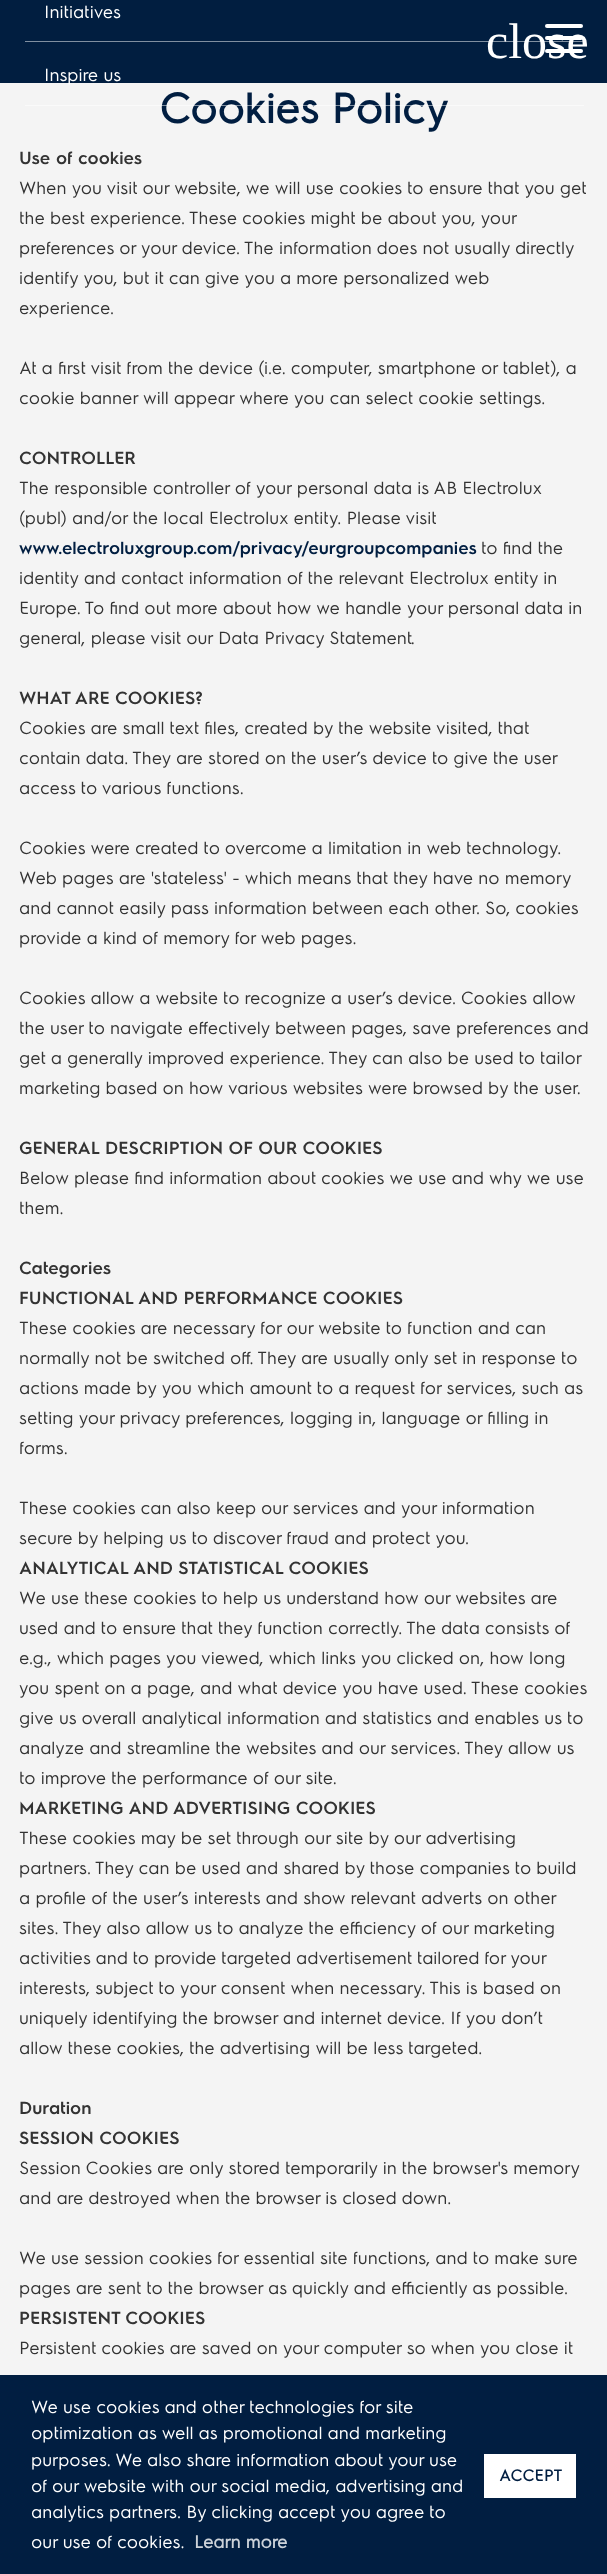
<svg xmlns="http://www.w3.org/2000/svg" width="607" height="2574">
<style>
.a{font:17.5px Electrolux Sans;fill:#fff}
.b{font:50px Liberation Serif;fill:#fff}
.c{font:bold 42px Electrolux Sans;fill:#011e41}
.d{font:600 17.5px Electrolux Sans;fill:#333}
.e{font:17.5px Electrolux Sans;fill:#333}
.f{font:600 17.5px Electrolux Sans;fill:#011e41}
.g{font:bold 17.5px Electrolux Sans;fill:#ccd2d9}
.h{font:bold 16px Electrolux Sans;fill:#011e41}
</style>
<rect width="100%" height="100%" fill="#f4f4f4"/>
<path fill="#011e40" d="M0 0h607v83H0z"/>
<path fill="#808fa0" d="M25 41h559v1H25z"/>
<rect fill="#fff" x="545" y="24" width="38" height="4" rx="2"/>
<rect fill="#fff" x="545" y="36" width="38" height="4" rx="2"/>
<rect fill="#fff" x="545" y="49" width="38" height="4" rx="2"/>
<path fill="#011e41" d="M0 2375h607v199H0z"/>
<path fill="#fff" d="M484 2454h92v44H484z"/>
<text class="a" x="44" y="18">Initiatives</text>
<text class="a" x="44" y="81">Inspire us</text>
<text class="b" x="486" y="58">close</text>
<text class="c" x="159" y="123">Cookies Policy</text>
<path fill="#ffffff80" d="M25 105h559v1H25z"/>
<text class="d" x="19" y="164">Use of cookies</text>
<text class="e" x="19" y="194">When you visit our website, we will use cookies to ensure that you get</text>
<text class="e" x="19" y="224">the best experience. These cookies might be about you, your</text>
<text class="e" x="19" y="254">preferences or your device. The information does not usually directly</text>
<text class="e" x="19" y="284">identify you, but it can give you a more personalized web</text>
<text class="e" x="19" y="314">experience.</text>
<text class="e" x="19" y="374">At a first visit from the device (i.e. computer, smartphone or tablet), a</text>
<text class="e" x="19" y="404">cookie banner will appear where you can select cookie settings.</text>
<text class="d" x="19" y="464">CONTROLLER</text>
<text class="e" x="19" y="494">The responsible controller of your personal data is AB Electrolux</text>
<text class="e" x="19" y="524">(publ) and/or the local Electrolux entity. Please visit</text>
<text class="f" x="19" y="554">www.electroluxgroup.com/privacy/eurgroupcompanies</text>
<text class="e" x="481" y="554">to find the</text>
<text class="e" x="19" y="584">identity and contact information of the relevant Electrolux entity in</text>
<text class="e" x="19" y="614">Europe. To find out more about how we handle your personal data in</text>
<text class="e" x="19" y="644">general, please visit our Data Privacy Statement.</text>
<text class="d" x="19" y="704">WHAT ARE COOKIES?</text>
<text class="e" x="19" y="734">Cookies are small text files, created by the website visited, that</text>
<text class="e" x="19" y="764">contain data. They are stored on the user’s device to give the user</text>
<text class="e" x="19" y="794">access to various functions.</text>
<text class="e" x="19" y="854">Cookies were created to overcome a limitation in web technology.</text>
<text class="e" x="19" y="884">Web pages are 'stateless' - which means that they have no memory</text>
<text class="e" x="19" y="914">and cannot easily pass information between each other. So, cookies</text>
<text class="e" x="19" y="944">provide a kind of memory for web pages.</text>
<text class="e" x="19" y="1004">Cookies allow a website to recognize a user’s device. Cookies allow</text>
<text class="e" x="19" y="1034">the user to navigate effectively between pages, save preferences and</text>
<text class="e" x="19" y="1064">get a generally improved experience. They can also be used to tailor</text>
<text class="e" x="19" y="1094">marketing based on how various websites were browsed by the user.</text>
<text class="d" x="19" y="1154">GENERAL DESCRIPTION OF OUR COOKIES</text>
<text class="e" x="19" y="1184">Below please find information about cookies we use and why we use</text>
<text class="e" x="19" y="1214">them.</text>
<text class="d" x="19" y="1274">Categories</text>
<text class="d" x="19" y="1304">FUNCTIONAL AND PERFORMANCE COOKIES</text>
<text class="e" x="19" y="1334">These cookies are necessary for our website to function and can</text>
<text class="e" x="19" y="1364">normally not be switched off. They are usually only set in response to</text>
<text class="e" x="19" y="1394">actions made by you which amount to a request for services, such as</text>
<text class="e" x="19" y="1424">setting your privacy preferences, logging in, language or filling in</text>
<text class="e" x="19" y="1454">forms.</text>
<text class="e" x="19" y="1514">These cookies can also keep our services and your information</text>
<text class="e" x="19" y="1544">secure by helping us to discover fraud and protect you.</text>
<text class="d" x="19" y="1574">ANALYTICAL AND STATISTICAL COOKIES</text>
<text class="e" x="19" y="1604">We use these cookies to help us understand how our websites are</text>
<text class="e" x="19" y="1634">used and to ensure that they function correctly. The data consists of</text>
<text class="e" x="19" y="1664">e.g., which pages you viewed, which links you clicked on, how long</text>
<text class="e" x="19" y="1694">you spent on a page, and what device you have used. These cookies</text>
<text class="e" x="19" y="1724">give us overall analytical information and statistics and enables us to</text>
<text class="e" x="19" y="1754">analyze and streamline the websites and our services. They allow us</text>
<text class="e" x="19" y="1784">to improve the performance of our site.</text>
<text class="d" x="19" y="1814">MARKETING AND ADVERTISING COOKIES</text>
<text class="e" x="19" y="1844">These cookies may be set through our site by our advertising</text>
<text class="e" x="19" y="1874">partners. They can be used and shared by those companies to build</text>
<text class="e" x="19" y="1904">a profile of the user’s interests and show relevant adverts on other</text>
<text class="e" x="19" y="1934">sites. They also allow us to analyze the efficiency of our marketing</text>
<text class="e" x="19" y="1964" word-spacing="-0.25">activities and to provide targeted advertisement tailored for your</text>
<text class="e" x="19" y="1994">interests, subject to your consent when necessary. This is based on</text>
<text class="e" x="19" y="2024">uniquely identifying the browser and internet device. If you don’t</text>
<text class="e" x="19" y="2054">allow these cookies, the advertising will be less targeted.</text>
<text class="d" x="19" y="2114">Duration</text>
<text class="d" x="19" y="2144">SESSION COOKIES</text>
<text class="e" x="19" y="2174">Session Cookies are only stored temporarily in the browser's memory</text>
<text class="e" x="19" y="2204">and are destroyed when the browser is closed down.</text>
<text class="e" x="19" y="2264">We use session cookies for essential site functions, and to make sure</text>
<text class="e" x="19" y="2294">pages are sent to the browser as quickly and efficiently as possible.</text>
<text class="d" x="19" y="2324">PERSISTENT COOKIES</text>
<text class="e" x="19" y="2354">Persistent cookies are saved on your computer so when you close it</text>
<text class="a" x="31" y="2413">We use cookies and other technologies for site</text>
<text class="a" x="31" y="2439">optimization as well as promotional and marketing</text>
<text class="a" x="31" y="2466">purposes. We also share information about your use</text>
<text class="a" x="31" y="2492">of our website with our social media, advertising and</text>
<text class="a" x="31" y="2518">analytics partners. By clicking accept you agree to</text>
<text class="a" x="31" y="2548">our use of cookies.</text>
<text class="g" x="194" y="2548">Learn more</text>
<text class="h" x="499" y="2481">ACCEPT</text>
</svg>
